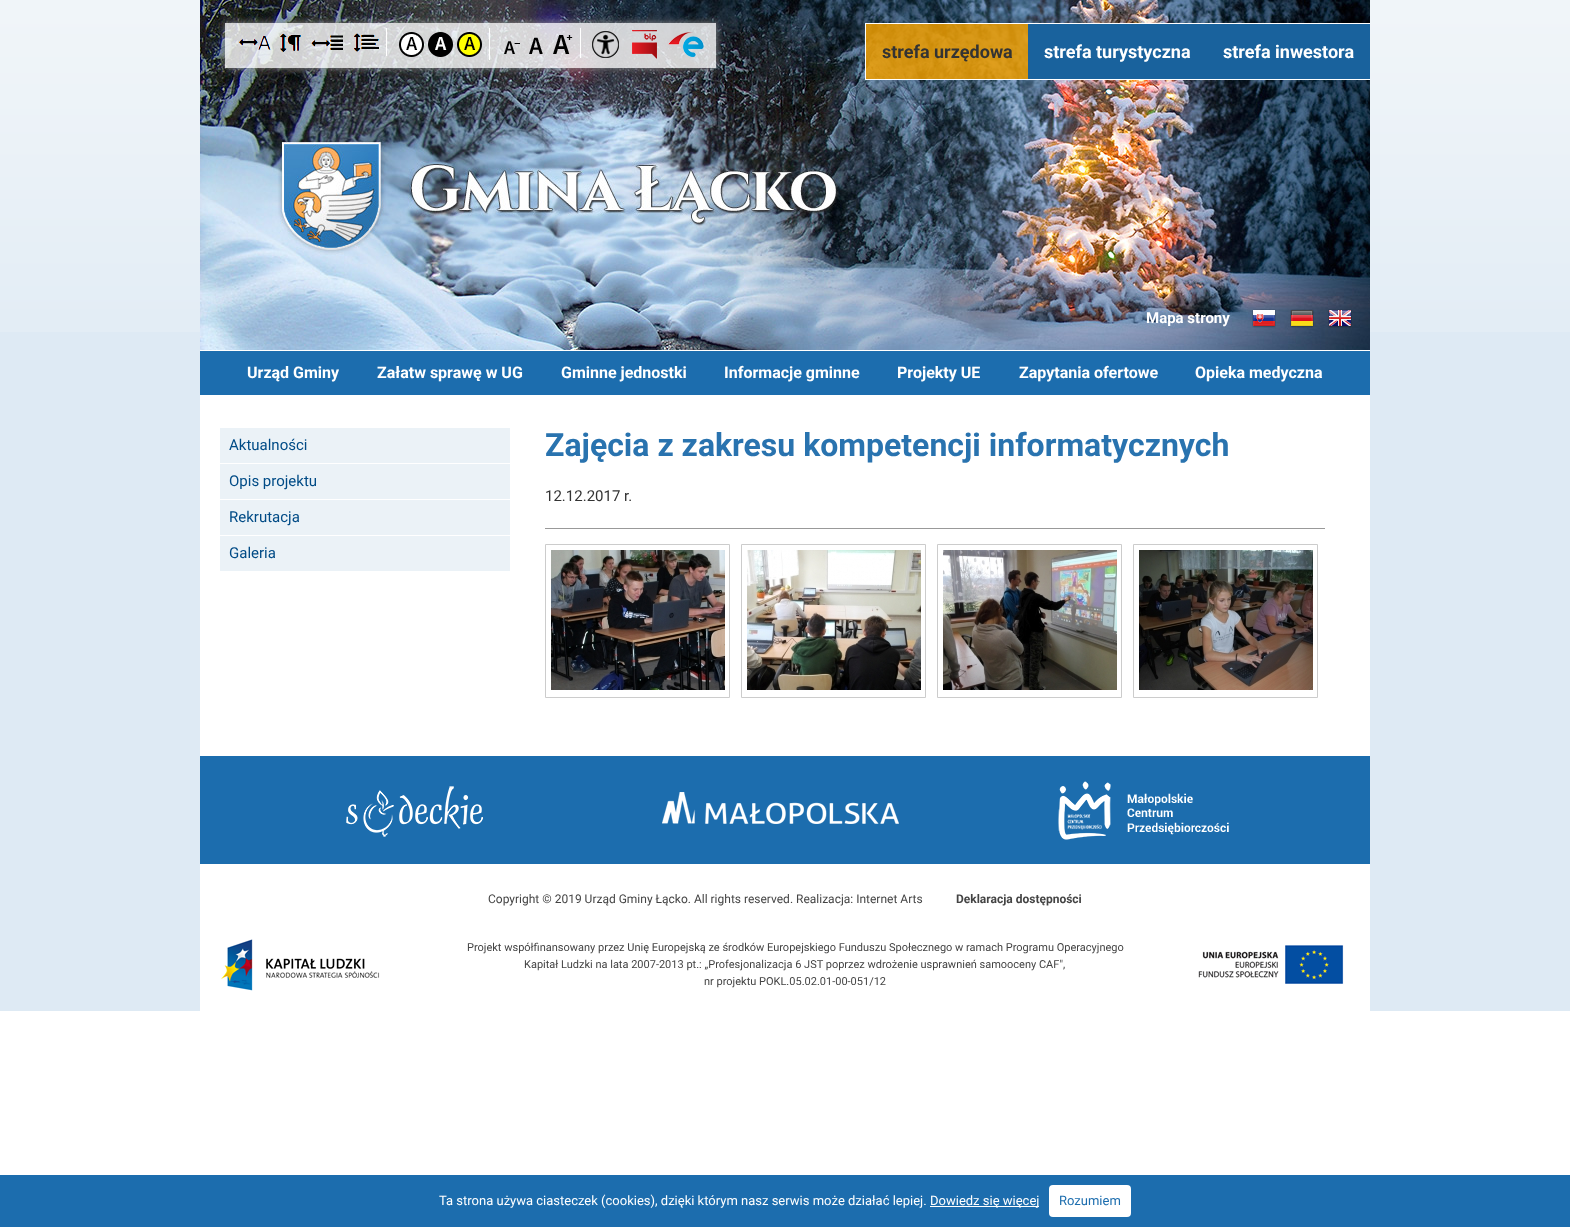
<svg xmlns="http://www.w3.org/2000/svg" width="1570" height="1227">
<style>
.a{font:bold 18px Roboto;fill:#333}
.b{font:bold 18px Roboto;fill:#fff}
.c{font:bold 15px Roboto;fill:#fff}
.d{font:bold 16px Roboto;fill:#fff}
.e{font:15px Roboto;fill:#014b86}
.f{font:bold 32px Roboto;fill:#2973af}
.g{font:15px Roboto;fill:#333}
.h{font:12px Roboto;fill:#444}
.i{font:bold 12px Roboto;fill:#444}
.j{font:11px Roboto;fill:#444}
.k{font:13px Roboto;fill:#fff}
.l{font:13px Roboto;fill:#1c6dae}
</style>
<defs>
<clipPath id="clip1"><path d="M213 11h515v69h-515zm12 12h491v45h-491z" clip-rule="evenodd"/></clipPath>
</defs>
<rect width="100%" height="100%" fill="#fff"/>
<path fill="#deeaf4" d="M0 332h1570v679H0z"/>
<image href="1.png" x="0" y="0" width="1570" height="332"/>
<path fill="#fff" d="M200 350h1170v661H200z"/>
<image href="2.png" x="200" y="0" width="1170" height="350"/>
<g clip-path="url(#clip1)">
<path fill="#888" filter="blur(3.5px)" d="M225 23h491v45H225z"/>
</g>
<path fill="#ffffffcc" d="M225 23h491v45H225z"/>
<path fill="#fff" d="M386 28h1v28H386z"/>
<image href="3.png" x="239" y="36" width="32" height="14"/>
<image href="4.png" x="279" y="33" width="23" height="19"/>
<image href="5.png" x="311" y="35" width="32" height="15"/>
<image href="6.png" x="353" y="33" width="26" height="19"/>
<path fill="#fff" d="M489 28h1v32H489z"/>
<image href="7.png" x="399" y="32" width="25" height="25"/>
<image href="8.png" x="428" y="32" width="25" height="25"/>
<image href="9.png" x="457" y="32" width="25" height="25"/>
<path fill="#fff" d="M580 28h1v30H580z"/>
<image href="10.png" x="504" y="41" width="16" height="13"/>
<image href="11.png" x="529" y="37" width="14" height="17"/>
<image href="12.png" x="553" y="35" width="20" height="19"/>
<image href="13.png" x="592" y="31" width="27" height="27"/>
<image href="14.png" x="632" y="30" width="25" height="29"/>
<image href="15.png" x="668" y="32" width="36" height="25"/>
<path fill="#fff" d="M865 23h505v1H865z"/>
<path fill="#fff" d="M865 79h505v1H865z"/>
<path fill="#fff" d="M865 23h1v57H865z"/>
<path fill="#ef9d00d9" d="M866 24h162v55H866z"/>
<path fill="#19629d" d="M1028 24h342v55H1028z"/>
<image href="16.png" x="1252" y="309" width="24" height="19"/>
<image href="17.png" x="1290" y="309" width="24" height="19"/>
<image href="18.png" x="1328" y="309" width="24" height="19"/>
<path fill="#1c6dae" d="M200 351h1170v44H200z"/>
<path fill="#ebf2f7" d="M220 428h290v35H220z"/>
<path fill="#ebf2f7" d="M220 464h290v35H220z"/>
<path fill="#ebf2f7" d="M220 500h290v35H220z"/>
<path fill="#ebf2f7" d="M220 536h290v35H220z"/>
<path fill="#999" d="M545 528h780v1H545z"/>
<path fill="none" stroke="#ccc" d="M545.5 544.5h184v153H545.5z"/>
<image href="19.png" x="551" y="550" width="174" height="140"/>
<path fill="none" stroke="#ccc" d="M741.5 544.5h184v153H741.5z"/>
<image href="20.png" x="747" y="550" width="174" height="140"/>
<path fill="none" stroke="#ccc" d="M937.5 544.5h184v153H937.5z"/>
<image href="21.png" x="943" y="550" width="174" height="140"/>
<path fill="none" stroke="#ccc" d="M1133.5 544.5h184v153H1133.5z"/>
<image href="22.png" x="1139" y="550" width="174" height="140"/>
<path fill="#1c6dae" d="M200 756h1170v108H200z"/>
<image href="23.png" x="346" y="786" width="137" height="51"/>
<image href="24.png" x="662" y="792" width="237" height="32"/>
<image href="25.png" x="1058" y="781" width="171" height="59"/>
<image href="26.png" x="221" y="939" width="1123" height="52"/>
<path fill="#1c6dae" d="M0 1175h1570v52H0z"/>
<path fill="#fff" d="M930 1206h109v1H930z"/>
<rect fill="#fff" x="1049" y="1185" width="82" height="32" rx="4"/>
<text class="a" x="882" y="58">strefa urzędowa</text>
<text class="b" x="1044" y="58">strefa turystyczna</text>
<text class="b" x="1223" y="58">strefa inwestora</text>
<text class="c" x="1146" y="323">Mapa strony</text>
<text class="d" x="247" y="378">Urząd Gminy</text>
<text class="d" x="377" y="378">Załatw sprawę w UG</text>
<text class="d" x="561" y="378">Gminne jednostki</text>
<text class="d" x="724" y="378">Informacje gminne</text>
<text class="d" x="897" y="378">Projekty UE</text>
<text class="d" x="1019" y="378">Zapytania ofertowe</text>
<text class="d" x="1195" y="378">Opieka medyczna</text>
<text class="e" x="229" y="450">Aktualności</text>
<text class="e" x="229" y="486">Opis projektu</text>
<text class="e" x="229" y="522">Rekrutacja</text>
<text class="e" x="229" y="558">Galeria</text>
<text class="f" x="545" y="456">Zajęcia z zakresu kompetencji informatycznych</text>
<text class="g" x="545" y="501">12.12.2017 r.</text>
<text class="h" x="488" y="903">Copyright © 2019 Urząd Gminy Łącko. All rights reserved. Realizacja: Internet Arts</text>
<text class="i" x="956" y="903">Deklaracja dostępności</text>
<text class="j" x="467" y="951">Projekt współfinansowany przez Unię Europejską ze środków Europejskiego Funduszu Społecznego w ramach Programu Operacyjnego</text>
<text class="j" x="524" y="968">Kapitał Ludzki na lata 2007-2013 pt.: „Profesjonalizacja 6 JST poprzez wdrożenie usprawnień samooceny CAF",</text>
<text class="j" x="704" y="985">nr projektu POKL.05.02.01-00-051/12</text>
<text class="k" x="439" y="1205">Ta strona używa ciasteczek (cookies), dzięki którym nasz serwis może działać lepiej.</text>
<text class="k" x="930" y="1205">Dowiedz się więcej</text>
<text class="l" x="1059" y="1205">Rozumiem</text>
</svg>
